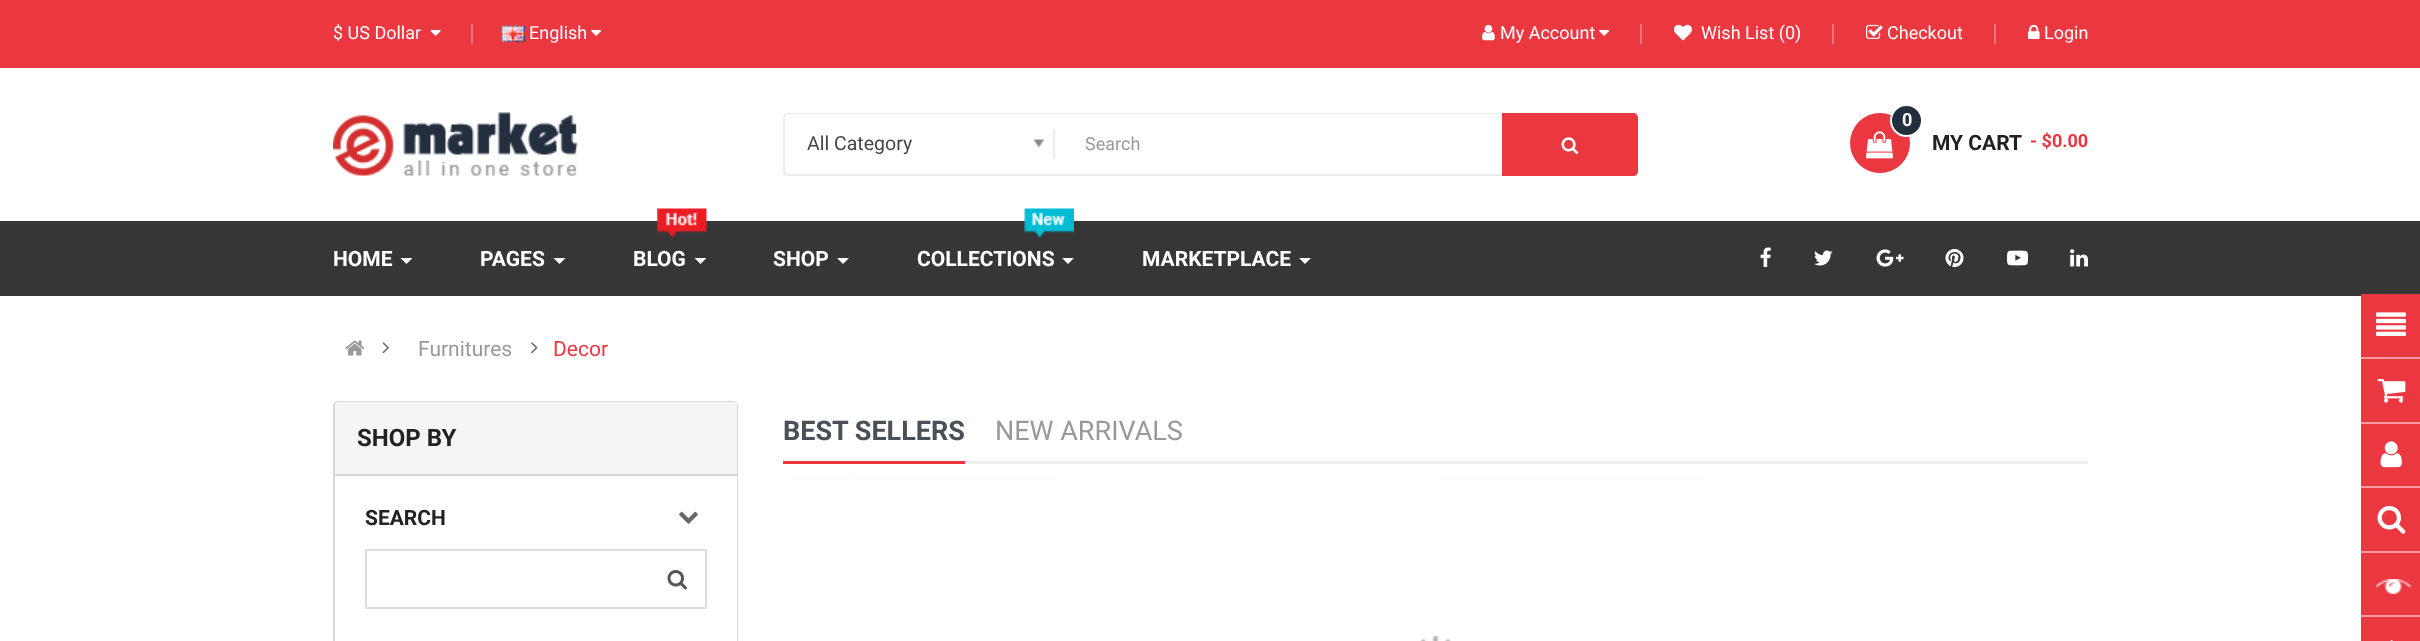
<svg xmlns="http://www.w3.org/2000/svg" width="2420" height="641">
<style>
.a{font:18px Roboto;fill:#fff}
.b{font:19.5px Roboto;fill:#444}
.c{font:18px Roboto;fill:#999}
.d{font:bold 18px Roboto;fill:#fff}
.e{font:bold 18px Roboto;fill:#eb3740}
.f{font:bold 21px Roboto;fill:#222}
.g{font:bold 21px Roboto;fill:#fff}
.h{font:21px Roboto;fill:#999}
.i{font:21px Roboto;fill:#eb3740}
.j{font:bold 24px Roboto;fill:#222}
.k{font:bold 27px Roboto;fill:#495057}
.l{font:27px Roboto;fill:#999}
</style>
<rect width="100%" height="100%" fill="#fff"/>
<path fill="#eb3740" d="M0 0h2420v68H0z"/>
<image href="1.png" x="430" y="30" width="11" height="6"/>
<path fill="#f17379" d="M471 24h2v20H471z"/>
<image href="2.png" x="501" y="25" width="24" height="17"/>
<image href="3.png" x="591" y="30" width="11" height="6"/>
<image href="4.png" x="1482" y="24" width="13" height="17"/>
<image href="3.png" x="1599" y="30" width="11" height="6"/>
<path fill="#f17379" d="M1640 24h2v20H1640z"/>
<image href="5.png" x="1674" y="24" width="18" height="17"/>
<path fill="#f17379" d="M1832 24h2v20H1832z"/>
<image href="6.png" x="1866" y="24" width="17" height="15"/>
<path fill="#f17379" d="M1994 24h2v20H1994z"/>
<image href="7.png" x="2028" y="24" width="12" height="15"/>
<image href="8.png" x="333" y="112" width="245" height="64"/>
<rect fill="none" stroke="#ebebeb" stroke-width="2" x="784" y="114" width="853" height="61" rx="4"/>
<path fill="#fff" d="M790 114h265v60h-265c-3 0-5-2-5-5v-50c0-3 2-5 5-5z"/>
<image href="9.png" x="1033" y="139" width="12" height="9"/>
<path fill="#ebebeb" d="M1053 129h2v30H1053z"/>
<path fill="#fff" d="M1055 114h576c3.5 0 6 2.5 6 6v48c0 3.5-2.5 6-6 6h-576z"/>
<path fill="#eb3740" d="M1502 113h131c3 0 5 2 5 5v53c0 3-2 5-5 5h-131z"/>
<image href="10.png" x="1561" y="137" width="18" height="17"/>
<circle fill="#eb3740" cx="1880" cy="143" r="30"/>
<image href="11.png" x="1866" y="131" width="27" height="28"/>
<circle fill="#232f3e" stroke="#fff" stroke-width="2" cx="1906.5" cy="120.5" r="15.5"/>
<path fill="#363636" d="M0 221h2420v75H0z"/>
<path fill="#fff" d="M400.5 258h12l-6 6z"/>
<path fill="#fff" d="M553.5 258h12l-6 6z"/>
<image href="12.png" x="657" y="208" width="50" height="31"/>
<path fill="#fff" d="M694.5 258h12l-6 6z"/>
<path fill="#fff" d="M837 258h12l-6 6z"/>
<image href="13.png" x="1024" y="208" width="50" height="31"/>
<path fill="#fff" d="M1062 258h12l-6 6z"/>
<path fill="#fff" d="M1299 258h12l-6 6z"/>
<image href="14.png" x="1760" y="247" width="11" height="20"/>
<image href="15.png" x="1814" y="250" width="19" height="16"/>
<image href="16.png" x="1876" y="249" width="28" height="18"/>
<image href="17.png" x="1945" y="249" width="19" height="18"/>
<image href="18.png" x="2007" y="250" width="21" height="16"/>
<image href="19.png" x="2070" y="249" width="18" height="18"/>
<image href="20.png" x="345" y="340" width="20" height="16"/>
<image href="21.png" x="382" y="342" width="7" height="12"/>
<image href="22.png" x="531" y="342" width="7" height="12"/>
<rect fill="none" stroke="#d7d7d7" stroke-width="2" x="334" y="402" width="403" height="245" rx="4"/>
<path fill="#f5f5f5" d="M338 402h396c1.5 0 3 1.5 3 3v71h-402v-71c0-1.5 1.5-3 3-3z"/>
<path fill="#d7d7d7" d="M335 474h402v2H335z"/>
<path fill="#fff" d="M736 476h1v165H736z"/>
<image href="23.png" x="679" y="511" width="19" height="13"/>
<path fill="none" stroke="#ddd" stroke-width="2" d="M366 550h340v58H366z"/>
<image href="24.png" x="667" y="570" width="20" height="20"/>
<path fill="#eee" d="M965 461h1123v3H965z"/>
<path fill="#eb3740" d="M783 461h182v3H783z"/>
<image href="25.png" x="785" y="478" width="270" height="1"/>
<image href="26.png" x="1438" y="478" width="269" height="1"/>
<image href="27.png" x="1420" y="636" width="31" height="5"/>
<path fill="#eb3740" d="M2361 294h59v347H2361z"/>
<path fill="#f59ba0" d="M2361 357h59v2H2361z"/>
<image href="28.png" x="2376" y="312" width="30" height="24"/>
<path fill="#f59ba0" d="M2361 422h59v2H2361z"/>
<image href="29.png" x="2377" y="379" width="29" height="24"/>
<path fill="#f59ba0" d="M2361 486h59v2H2361z"/>
<image href="30.png" x="2380" y="441" width="22" height="27"/>
<path fill="#f59ba0" d="M2361 551h59v2H2361z"/>
<image href="31.png" x="2377" y="505" width="29" height="29"/>
<path fill="#f59ba0" d="M2361 615h59v2H2361z"/>
<image href="32.png" x="2376" y="579" width="35" height="15"/>
<image href="33.png" x="2390" y="640" width="3" height="1"/>
<text class="a" x="333" y="39">$ US Dollar</text>
<text class="a" x="529" y="39">English</text>
<text class="a" x="1500" y="39">My Account</text>
<text class="a" x="1701" y="39">Wish List (0)</text>
<text class="a" x="1887" y="39">Checkout</text>
<text class="a" x="2044" y="39">Login</text>
<text class="b" x="807" y="150">All Category</text>
<text class="c" x="1085" y="150">Search</text>
<text class="d" x="1902" y="126">0</text>
<text class="e" x="2030" y="147">- $0.00</text>
<text class="f" x="1932" y="150">MY CART</text>
<text class="g" x="333" y="266">HOME</text>
<text class="g" x="480" y="266">PAGES</text>
<text class="g" x="633" y="266">BLOG</text>
<text class="g" x="773" y="266">SHOP</text>
<text class="g" x="917" y="266">COLLECTIONS</text>
<text class="g" x="1142" y="266">MARKETPLACE</text>
<text class="h" x="418" y="356">Furnitures</text>
<text class="i" x="553" y="356">Decor</text>
<text class="j" x="357" y="446">SHOP BY</text>
<text class="f" x="365" y="525">SEARCH</text>
<text class="k" x="783" y="440">BEST SELLERS</text>
<text class="l" x="995" y="440">NEW ARRIVALS</text>
</svg>
